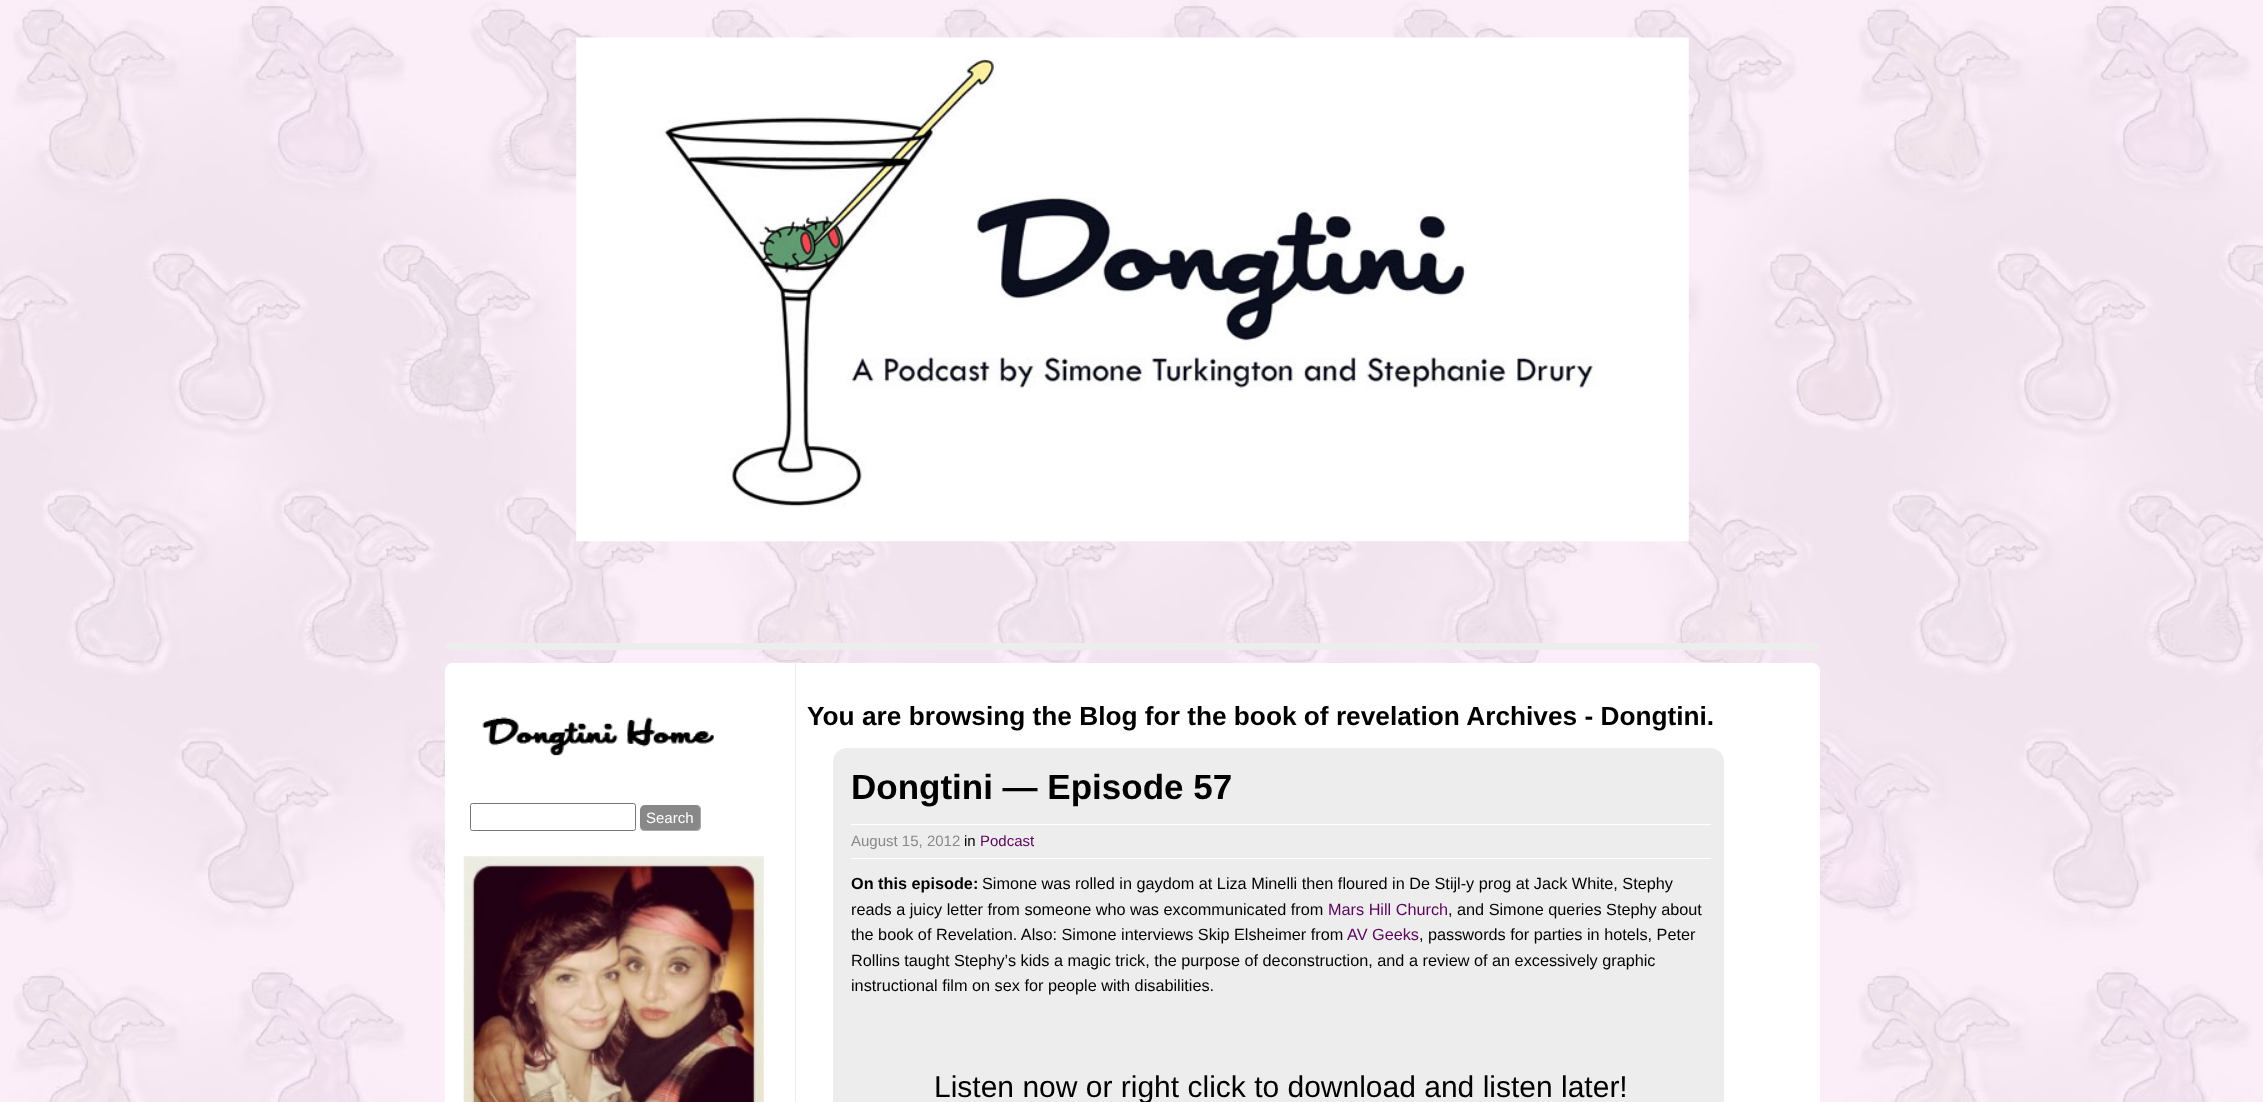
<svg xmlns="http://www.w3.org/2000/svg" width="2263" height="1102">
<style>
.a{font:15px Liberation Sans;fill:#fff}
.b{font:bold 26.25px Liberation Sans;fill:#000}
.c{font:bold 35px Liberation Sans;fill:#000}
.d{font:15px Liberation Sans;fill:#888}
.e{font:15px Liberation Sans;fill:#000}
.f{font:15px Liberation Sans;fill:#5c035c}
.g{font:bold 16.25px Liberation Sans;fill:#000}
.h{font:16.25px Liberation Sans;fill:#000}
.i{font:16.25px Liberation Sans;fill:#5c035c}
.j{font:30px Liberation Sans;fill:#000}
</style>
<rect width="100%" height="100%" fill="#fff"/>
<image href="1.png" x="0" y="0" width="2263" height="1102"/>
<image href="2.png" x="576" y="37" width="1113" height="505"/>
<rect fill="#ededed" x="445" y="643" width="1375" height="7" rx="3.5"/>
<rect fill="#fff" x="445" y="663" width="1375" height="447" rx="8"/>
<image href="3.png" x="482" y="717" width="232" height="39"/>
<rect fill="none" stroke="#767676" x="470.5" y="803.5" width="165" height="27" rx="2"/>
<rect fill="#888" x="640" y="805" width="61" height="26" rx="5"/>
<path fill="#aaa" fill-rule="evenodd" d="M645 805h51c3 0 5 2 5 5v16c0 3-2 5-5 5h-51c-3 0-5-2-5-5v-16c0-3 2-5 5-5zm0 0h51c2 0 4 2 4 5v16c0 2-2 4-4 4h-51c-3 0-5-2-5-4v-16c0-3 2-5 5-5z"/>
<image href="4.png" x="463" y="856" width="301" height="246"/>
<path fill="#ededed" d="M795 663h1v439H795z"/>
<rect fill="#ededed" x="833" y="748" width="891" height="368" rx="14"/>
<path fill="#fff" d="M851 824h860v1H851z"/>
<path fill="#fff" d="M851 858h860v1H851z"/>
<text class="a" x="646" y="823">Search</text>
<text class="b" x="807" y="725">You are browsing the Blog for the book of revelation Archives - Dongtini.</text>
<text class="c" x="851" y="799">Dongtini — Episode 57</text>
<text class="d" x="851" y="846">August 15, 2012</text>
<text class="e" x="964" y="846">in</text>
<text class="f" x="980" y="846">Podcast</text>
<text class="g" x="851" y="889">On this episode:</text>
<text class="h" x="982" y="889">Simone was rolled in gaydom at Liza Minelli then floured in De Stijl-y prog at Jack White, Stephy</text>
<text class="h" x="851" y="915">reads a juicy letter from someone who was excommunicated from</text>
<text class="i" x="1328" y="915">Mars Hill Church</text>
<text class="h" x="1448" y="915">, and Simone queries Stephy about</text>
<text class="h" x="851" y="940">the book of Revelation. Also: Simone interviews Skip Elsheimer from</text>
<text class="i" x="1347" y="940">AV Geeks</text>
<text class="h" x="1419" y="940">, passwords for parties in hotels, Peter</text>
<text class="h" x="851" y="966">Rollins taught Stephy’s kids a magic trick, the purpose of deconstruction, and a review of an excessively graphic</text>
<text class="h" x="851" y="991">instructional film on sex for people with disabilities.</text>
<text class="j" x="934" y="1097">Listen now or right click to download and listen later!</text>
</svg>
